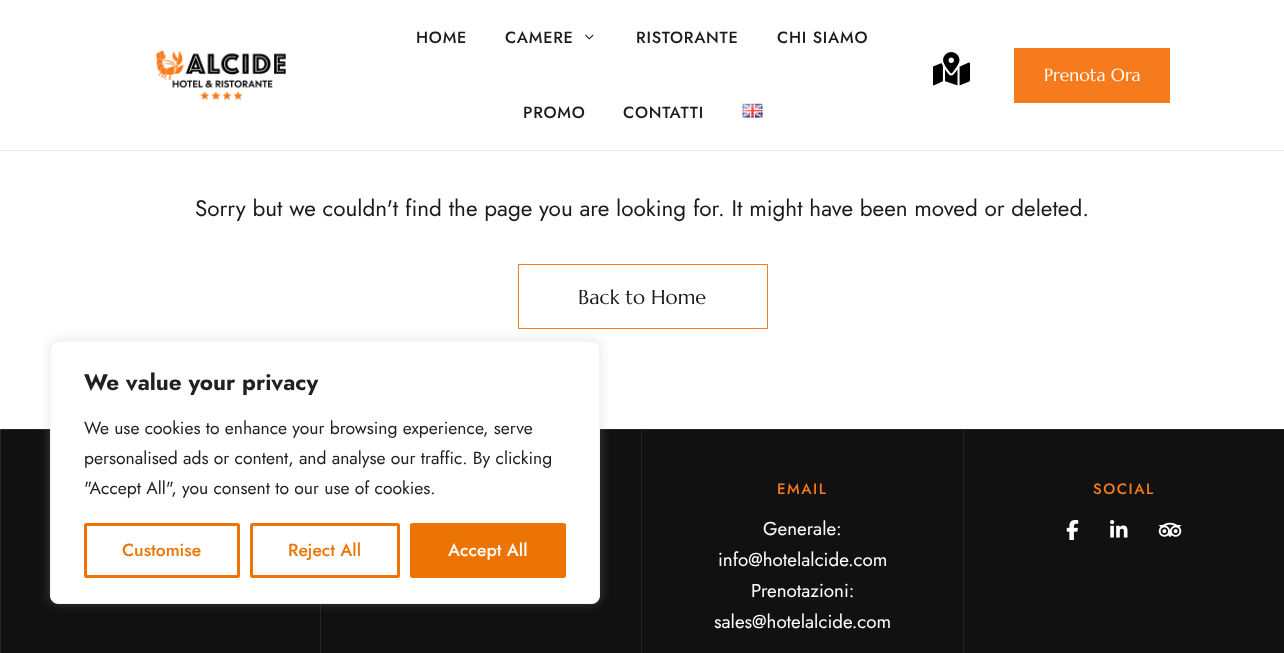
<svg xmlns="http://www.w3.org/2000/svg" width="1284" height="653">
<style>
.a{font:500 16.25px Jost;letter-spacing:0.75px;fill:#1a1b1a}
.b{font:17.5px Marcellus;fill:#fff}
.c{font:22.5px Jost;fill:#1a1b1a}
.d{font:20px Marcellus;fill:#1a1b1a}
.e{font:500 15px Jost;letter-spacing:1.5px;fill:#f67b1c}
.f{font:18.75px Jost;fill:#fff}
.g{font:bold 22.5px Jost;fill:#212121}
.h{font:17.5px Jost;fill:#212121}
.i{font:500 17.5px Jost;fill:#ec7405}
.j{font:500 17.5px Jost;fill:#fff}
</style>
<rect width="100%" height="100%" fill="#fff"/>
<path fill="#ebebeb" d="M0 150h1284v1H0z"/>
<image href="1.png" x="155" y="50" width="131" height="50"/>
<image href="2.png" x="585" y="34" width="9" height="6"/>
<image href="3.png" x="742" y="103" width="21" height="15"/>
<image href="4.png" x="933" y="52" width="37" height="34"/>
<path fill="#f67b1c" d="M1014 48h156v55H1014z"/>
<path fill="none" stroke="#f67b1c" d="M518.5 264.5h249v64H518.5z"/>
<path fill="#111" d="M1 430h1283v223H1z"/>
<path fill="none" stroke="#232323" d="M0.5 429.5h320v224H0.5z"/>
<path fill="#232323" d="M600 429h684v1H600z"/>
<path fill="#232323" d="M641 429h1v224H641z"/>
<path fill="#232323" d="M963 429h1v224H963z"/>
<image href="5.png" x="1066" y="520" width="13" height="20"/>
<image href="6.png" x="1110" y="520" width="18" height="18"/>
<image href="7.png" x="1158" y="522" width="24" height="16"/>
<rect fill="#acabab4d" filter="blur(6px)" x="50" y="340" width="550" height="263" rx="8"/>
<rect fill="#fff" stroke="#f4f4f4" x="50.5" y="341.5" width="549" height="262" rx="7.5"/>
<rect fill="none" stroke="#ec7405" stroke-width="3" x="85.5" y="524.5" width="153" height="52" rx="1"/>
<rect fill="none" stroke="#ec7405" stroke-width="3" x="251.5" y="524.5" width="147" height="52" rx="1"/>
<rect fill="#ec7405" stroke="#ec7405" stroke-width="3" x="411.5" y="524.5" width="153" height="52" rx="1"/>
<text class="a" x="416" y="43">HOME</text>
<text class="a" x="505" y="43">CAMERE</text>
<text class="a" x="636" y="43">RISTORANTE</text>
<text class="a" x="777" y="43">CHI SIAMO</text>
<text class="a" x="523" y="118">PROMO</text>
<text class="a" x="623" y="118">CONTATTI</text>
<text class="b" x="1044" y="81">Prenota Ora</text>
<text class="c" x="195" y="216">Sorry but we couldn't find the page you are looking for. It might have been moved or deleted.</text>
<text class="d" x="578" y="304">Back to Home</text>
<text class="e" x="777" y="494">EMAIL</text>
<text class="f" x="763" y="535">Generale:</text>
<text class="f" x="718" y="566">info@hotelalcide.com</text>
<text class="f" x="751" y="597">Prenotazioni:</text>
<text class="f" x="714" y="628">sales@hotelalcide.com</text>
<text class="e" x="1093" y="494">SOCIAL</text>
<text class="g" x="84" y="390">We value your privacy</text>
<text class="h" x="84" y="434">We use cookies to enhance your browsing experience, serve</text>
<text class="h" x="84" y="464">personalised ads or content, and analyse our traffic. By clicking</text>
<text class="h" x="84" y="494">"Accept All", you consent to our use of cookies.</text>
<text class="i" x="122" y="556">Customise</text>
<text class="i" x="288" y="556">Reject All</text>
<text class="j" x="448" y="556">Accept All</text>
</svg>
